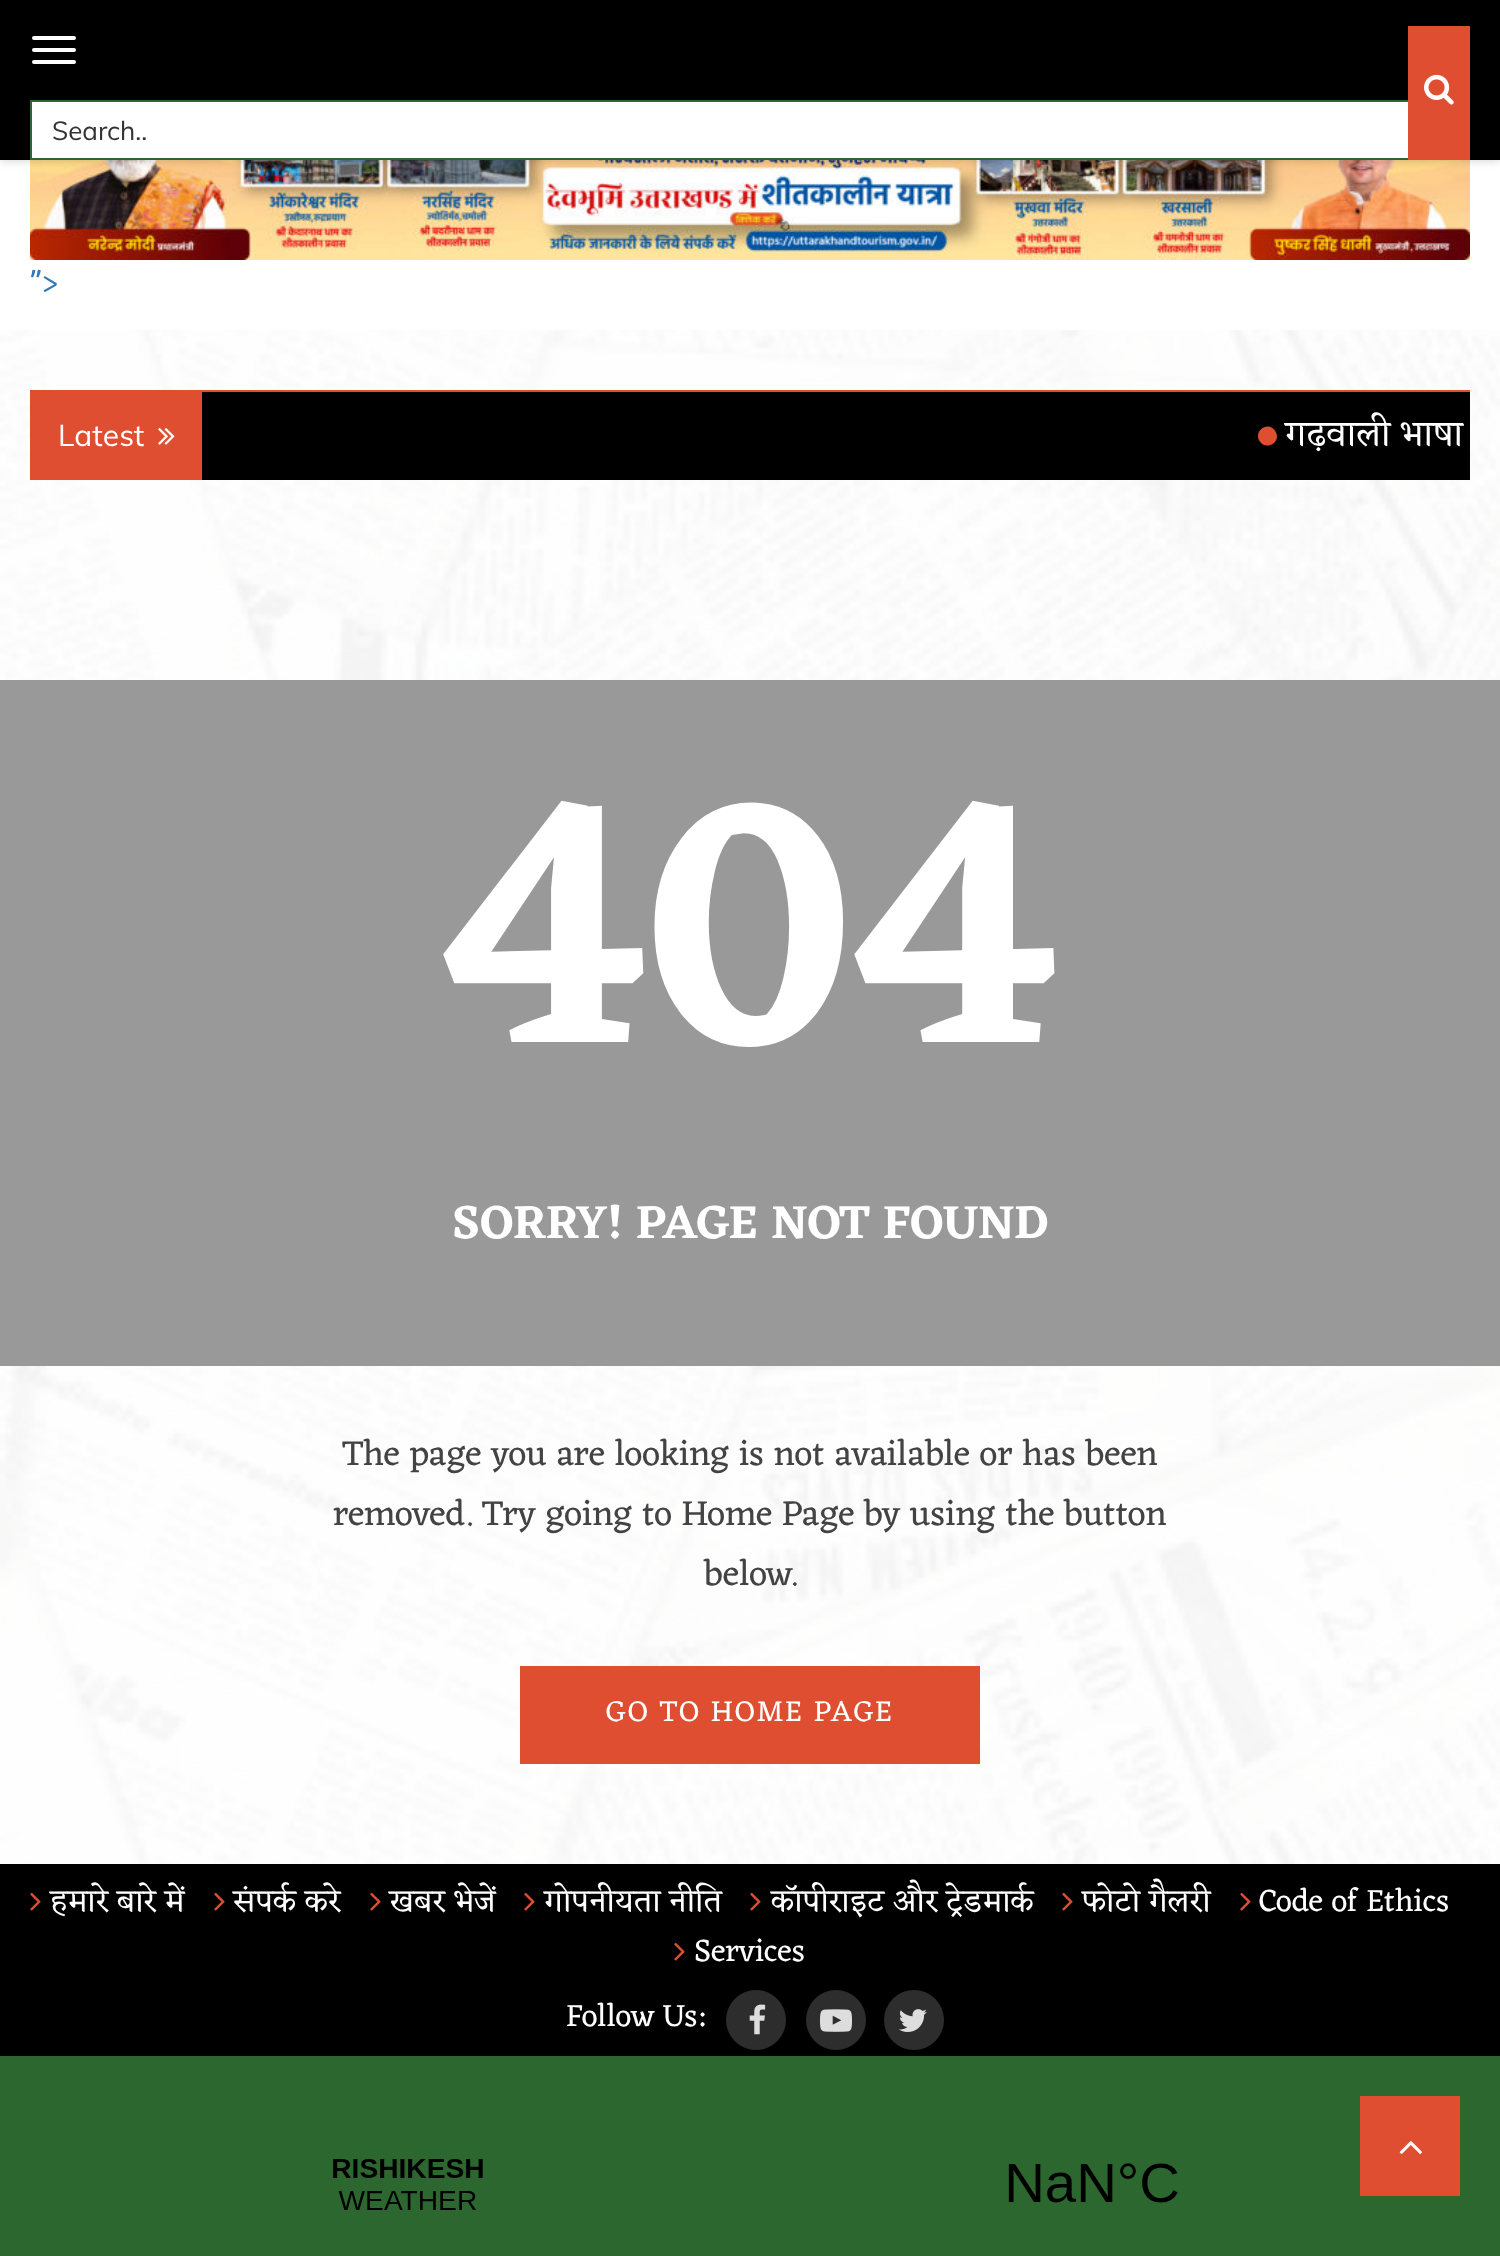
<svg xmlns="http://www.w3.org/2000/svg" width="1500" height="2256">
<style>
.a{font:26px Muli;fill:#333}
.b{font:32px Eczar;fill:#337ab7}
.c{font:30px Muli;fill:#fff}
.d{font:36px Eczar;fill:#fff}
.e{font:600 360px Eczar;fill:#fff}
.f{font:600 48px Eczar;fill:#fff}
.g{font:36px Eczar;fill:#434343}
.h{font:30px Eczar;letter-spacing:2px;fill:#fff}
.i{font:32px Eczar;fill:#fff}
</style>
<rect width="100%" height="100%" fill="#fff"/>
<image href="1.png" x="0" y="330" width="1500" height="1534"/>
<image href="3.png" x="30" y="160" width="1440" height="100"/>
<path fill="#00000033" filter="blur(5px)" d="M0 0h1500v160H0z"/>
<path fill="#000" d="M0 0h1500v160H0z"/>
<rect fill="#fff" x="32" y="36" width="44" height="4" rx="2"/>
<rect fill="#fff" x="32" y="48" width="44" height="4" rx="2"/>
<rect fill="#fff" x="32" y="60" width="44" height="4" rx="2"/>
<path fill="#fff" d="M32 102h1376v56H32z"/>
<path fill="none" stroke="#2d6730" stroke-width="2" d="M31 101h1438v58H31z"/>
<path fill="#e04e31" d="M1408 26h62v134H1408z"/>
<image href="2.png" x="1424" y="74" width="30" height="31"/>
<path fill="#e04e31" d="M30 390h1440v90H30z"/>
<image href="4.png" x="158" y="428" width="17" height="17"/>
<path fill="#000" d="M202 392h1268v88H202z"/>
<path fill="#e04e31" d="M1275.5 431.5c6.5 10.5-10 20-16 9.5c-6.5-11 10-20.5 16-9.5z"/>
<path fill="#999" d="M0 680h1500v686H0z"/>
<path fill="#e04e31" d="M520 1666h460v98H520z"/>
<path fill="#000" d="M0 1864h1500v192H0z"/>
<image href="5.png" x="30" y="1892" width="11" height="19"/>
<image href="5.png" x="214" y="1892" width="11" height="19"/>
<image href="5.png" x="370" y="1892" width="11" height="19"/>
<image href="5.png" x="524" y="1892" width="11" height="19"/>
<image href="5.png" x="750" y="1892" width="11" height="19"/>
<image href="5.png" x="1062" y="1892" width="11" height="19"/>
<image href="5.png" x="1240" y="1892" width="11" height="19"/>
<image href="5.png" x="674" y="1942" width="11" height="19"/>
<circle fill="#2d2d2d" cx="756" cy="2020" r="30"/>
<image href="6.png" x="749" y="2004" width="17" height="31"/>
<circle fill="#2d2d2d" cx="836" cy="2020" r="30"/>
<image href="7.png" x="820" y="2009" width="32" height="23"/>
<circle fill="#2d2d2d" cx="914" cy="2020" r="30"/>
<image href="8.png" x="899" y="2009" width="28" height="23"/>
<path fill="#2d6730" d="M0 2056h1500v200H0z"/>
<image href="9.png" x="333" y="2159" width="845" height="51"/>
<path fill="#e04e31" d="M1360 2096h100v100H1360z"/>
<image href="10.png" x="1399" y="2141" width="23" height="13"/>
<text class="a" x="52" y="140">Search..</text>
<text class="b" x="30" y="292">"&gt;</text>
<text class="c" x="58" y="446">Latest</text>
<text class="d" x="1285" y="445">गढ़वाली भाषा</text>
<text class="e" x="437" y="1042">404</text>
<text class="f" x="452" y="1238">SORRY! PAGE NOT FOUND</text>
<text class="g" x="342" y="1465">The page you are looking is not available or has been</text>
<text class="g" x="333" y="1525">removed. Try going to Home Page by using the button</text>
<text class="g" x="704" y="1585">below.</text>
<text class="h" x="606" y="1721">GO TO HOME PAGE</text>
<text class="i" x="50" y="1911">हमारे बारे में</text>
<text class="i" x="233" y="1911">संपर्क करे</text>
<text class="i" x="389" y="1911">खबर भेजें</text>
<text class="i" x="544" y="1911">गोपनीयता नीति</text>
<text class="i" x="771" y="1911">कॉपीराइट और ट्रेडमार्क</text>
<text class="i" x="1082" y="1911">फोटो गैलरी</text>
<text class="i" x="1259" y="1911">Code of Ethics</text>
<text class="i" x="694" y="1961">Services</text>
<text class="i" x="566" y="2026">Follow Us:</text>
</svg>
